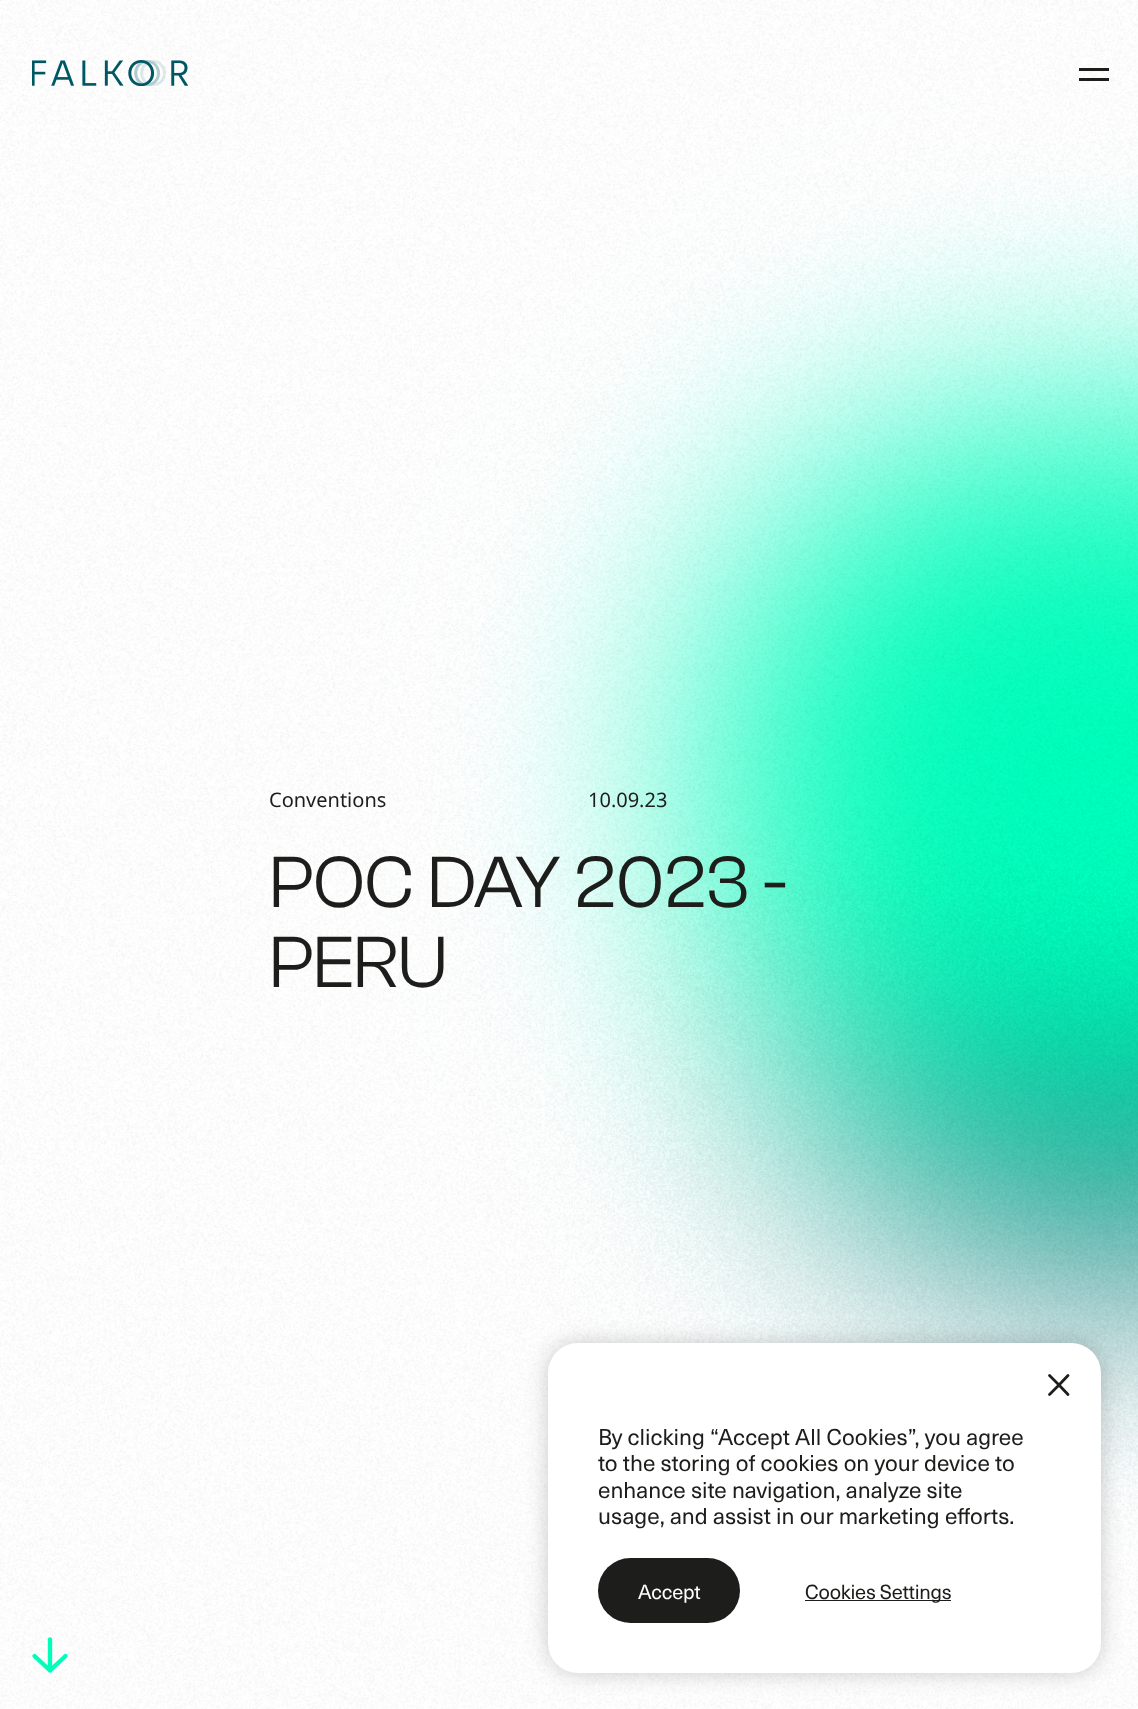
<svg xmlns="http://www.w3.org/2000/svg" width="1138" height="1709">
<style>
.a{font:20px Noto Sans;fill:#1d1d1b}
.b{font:75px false;letter-spacing:-0.25px;fill:#1d1d1b}
.c{font:22.5px 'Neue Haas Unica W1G';fill:#1d1d1b}
.d{font:20px 'Neue Haas Unica W1G';letter-spacing:-0.25px;fill:#fff}
.e{font:20px 'Neue Haas Unica W1G';letter-spacing:-0.25px;fill:#1d1d1b}
</style>
<rect width="100%" height="100%" fill="#fff"/>
<image href="1.png" x="0" y="0" width="1138" height="1709"/>
<image href="2.png" x="32" y="60" width="156" height="26"/>
<path fill="#1d1d1b" d="M1079 68h30v3H1079z"/>
<path fill="#1d1d1b" d="M1079 78h30v3H1079z"/>
<path fill="none" stroke="#00ffba" stroke-width="4.4" stroke-linecap="round" stroke-linejoin="round" d="M50 1639.5v31m15.5-14.5l-15.5 14.5l-15.5-14.5"/>
<rect fill="#00000033" filter="blur(11px)" x="548" y="1343" width="553" height="330" rx="30"/>
<rect fill="#fff" x="548" y="1343" width="553" height="330" rx="30"/>
<path fill="none" stroke="#1d1d1b" stroke-width="2.8" stroke-linecap="round" stroke-linejoin="round" d="M1049.5 1375.5l9.5 9.5l-9.5 9.5m18.5 0l-9-9.5l9-9.5"/>
<rect fill="#1d1d1b" x="598" y="1558" width="142" height="65" rx="32.5"/>
<path fill="#1d1d1b" d="M805 1600h146v1H805z"/>
<text class="a" x="269" y="807">Conventions</text>
<text class="a" x="588" y="807">10.09.23</text>
<text class="b" x="269" y="907">POC DAY 2023 -</text>
<text class="b" x="269" y="987">PERU</text>
<text class="c" x="598" y="1445">By clicking “Accept All Cookies”, you agree</text>
<text class="c" x="598" y="1471">to the storing of cookies on your device to</text>
<text class="c" x="598" y="1498">enhance site navigation, analyze site</text>
<text class="c" x="598" y="1524">usage, and assist in our marketing efforts.</text>
<text class="d" x="638" y="1599">Accept</text>
<text class="e" x="805" y="1599">Cookies Settings</text>
</svg>
